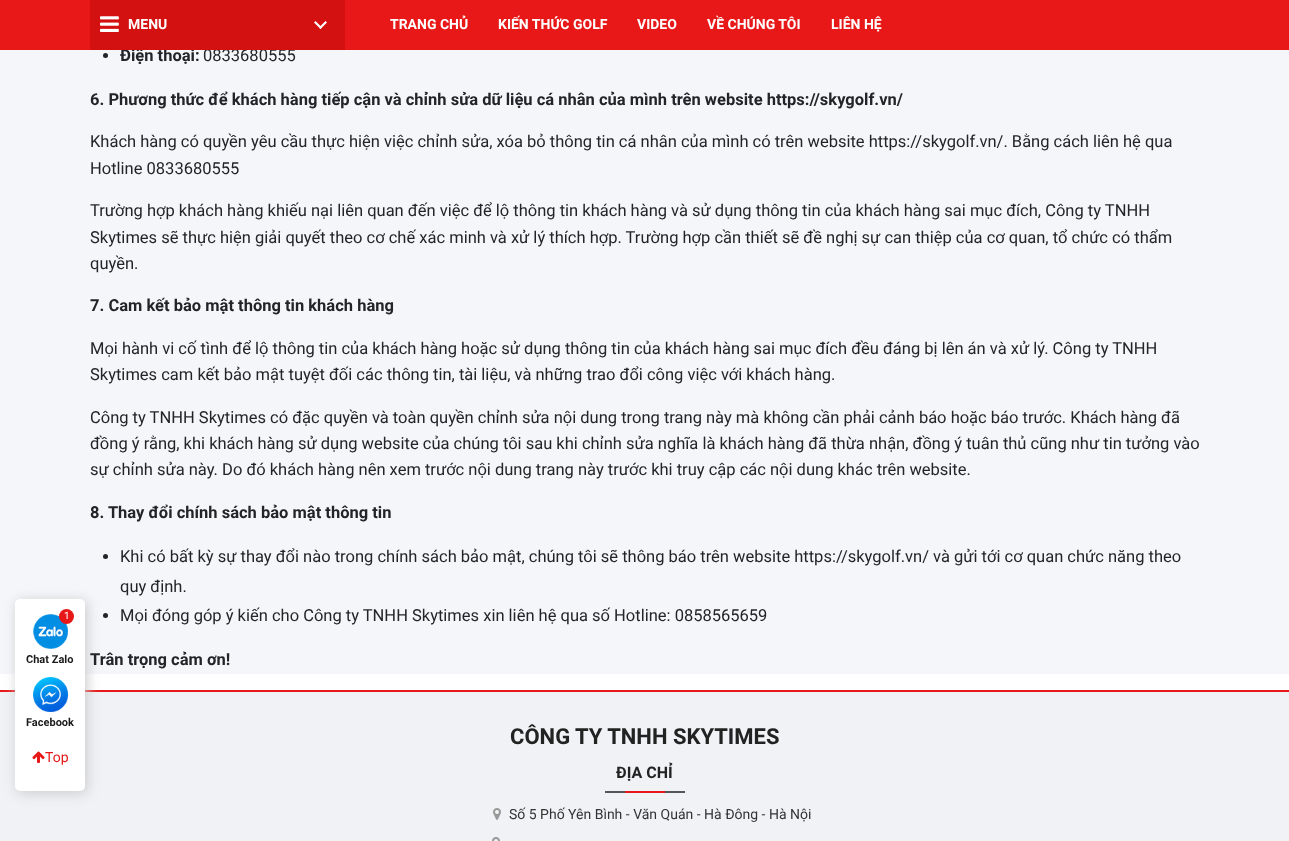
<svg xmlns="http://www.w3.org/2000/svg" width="1289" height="841">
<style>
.a{font:bold 16.5px Roboto;fill:#212529}
.b{font:16.5px Roboto;fill:#212529}
.c{font:bold 14px Roboto;fill:#fff}
.d{font:10px Roboto;fill:#fff}
.e{font:bold 11px Roboto;fill:#191919}
.f{font:14px Roboto;fill:#e81818}
.g{font:bold 22px Roboto;fill:#222}
.h{font:bold 16px Roboto;fill:#222}
.i{font:14px Roboto;fill:#333}
</style>
<rect width="100%" height="100%" fill="#fff"/>
<path fill="#f5f6fa" d="M0 50h1289v624H0z"/>
<circle fill="#212529" cx="105.5" cy="55.5" r="2.5"/>
<circle fill="#212529" cx="105.5" cy="556.5" r="2.5"/>
<circle fill="#212529" cx="105.5" cy="615.5" r="2.5"/>
<path fill="#f0f2f5" d="M0 692h1289v149H0z"/>
<path fill="#e81818" d="M0 690h1289v2H0z"/>
<rect fill="#cacaca" filter="blur(6.5px)" x="17" y="601" width="70" height="192" rx="5"/>
<rect fill="#fff" x="15" y="599" width="70" height="192" rx="5"/>
<image href="2.png" x="33" y="614" width="35" height="35"/>
<circle fill="#e81818" cx="66.5" cy="616.5" r="7.5"/>
<image href="3.png" x="33" y="677" width="35" height="35"/>
<image href="4.png" x="32" y="751" width="13" height="12"/>
<path fill="#555" d="M605 791h80v2H605z"/>
<path fill="#e81818" d="M625 791h40v2H625z"/>
<image href="5.png" x="493" y="808" width="8" height="12"/>
<image href="6.png" x="492" y="837" width="8" height="4"/>
<text class="a" x="120" y="61">Điện thoại:</text>
<text class="b" x="203" y="61">0833680555</text>
<path fill="#e81818" d="M0 0h1289v50H0z"/>
<text class="c" x="831" y="29">LIÊN HỆ</text>
<text class="c" x="707" y="29">VỀ CHÚNG TÔI</text>
<text class="c" x="637" y="29">VIDEO</text>
<text class="c" x="498" y="29">KIẾN THỨC GOLF</text>
<text class="c" x="390" y="29">TRANG CHỦ</text>
<path fill="#d31111" d="M90 0h255v50H90z"/>
<path fill="#fff" d="M315.5 21l6.5 6.5l-1.5 1.5l-6.5-6.5z"/>
<path fill="#fff" d="M319 27.5l6.5-6.5l1.5 1.5l-6.5 6.5z"/>
<text class="c" x="128" y="29">MENU</text>
<image href="1.png" x="100" y="16" width="19" height="16"/>
<text class="a" x="90" y="105">6. Phương thức để khách hàng tiếp cận và chỉnh sửa dữ liệu cá nhân của mình trên website https://skygolf.vn/</text>
<text class="b" x="90" y="147">Khách hàng có quyền yêu cầu thực hiện việc chỉnh sửa, xóa bỏ thông tin cá nhân của mình có trên website https://skygolf.vn/. Bằng cách liên hệ qua</text>
<text class="b" x="90" y="174">Hotline 0833680555</text>
<text class="b" x="90" y="216">Trường hợp khách hàng khiếu nại liên quan đến việc để lộ thông tin khách hàng và sử dụng thông tin của khách hàng sai mục đích, Công ty TNHH</text>
<text class="b" x="90" y="243">Skytimes sẽ thực hiện giải quyết theo cơ chế xác minh và xử lý thích hợp. Trường hợp cần thiết sẽ đề nghị sự can thiệp của cơ quan, tổ chức có thẩm</text>
<text class="b" x="90" y="269">quyền.</text>
<text class="a" x="90" y="311">7. Cam kết bảo mật thông tin khách hàng</text>
<text class="b" x="90" y="354">Mọi hành vi cố tình để lộ thông tin của khách hàng hoặc sử dụng thông tin của khách hàng sai mục đích đều đáng bị lên án và xử lý. Công ty TNHH</text>
<text class="b" x="90" y="380">Skytimes cam kết bảo mật tuyệt đối các thông tin, tài liệu, và những trao đổi công việc với khách hàng.</text>
<text class="b" x="90" y="423">Công ty TNHH Skytimes có đặc quyền và toàn quyền chỉnh sửa nội dung trong trang này mà không cần phải cảnh báo hoặc báo trước. Khách hàng đã</text>
<text class="b" x="90" y="449">đồng ý rằng, khi khách hàng sử dụng website của chúng tôi sau khi chỉnh sửa nghĩa là khách hàng đã thừa nhận, đồng ý tuân thủ cũng như tin tưởng vào</text>
<text class="b" x="90" y="475">sự chỉnh sửa này. Do đó khách hàng nên xem trước nội dung trang này trước khi truy cập các nội dung khác trên website.</text>
<text class="a" x="90" y="518">8. Thay đổi chính sách bảo mật thông tin</text>
<text class="b" x="120" y="562">Khi có bất kỳ sự thay đổi nào trong chính sách bảo mật, chúng tôi sẽ thông báo trên website https://skygolf.vn/ và gửi tới cơ quan chức năng theo</text>
<text class="b" x="120" y="592">quy định.</text>
<text class="b" x="120" y="621">Mọi đóng góp ý kiến cho Công ty TNHH Skytimes xin liên hệ qua số Hotline: 0858565659</text>
<text class="a" x="90" y="665">Trân trọng cảm ơn!</text>
<text class="d" x="64" y="619">1</text>
<text class="e" x="26" y="663">Chat Zalo</text>
<text class="e" x="26" y="726">Facebook</text>
<text class="f" x="45" y="762">Top</text>
<text class="g" x="510" y="744">CÔNG TY TNHH SKYTIMES</text>
<text class="h" x="616" y="778">ĐỊA CHỈ</text>
<text class="i" x="509" y="819">Số 5 Phố Yên Bình - Văn Quán - Hà Đông - Hà Nội</text>
</svg>
